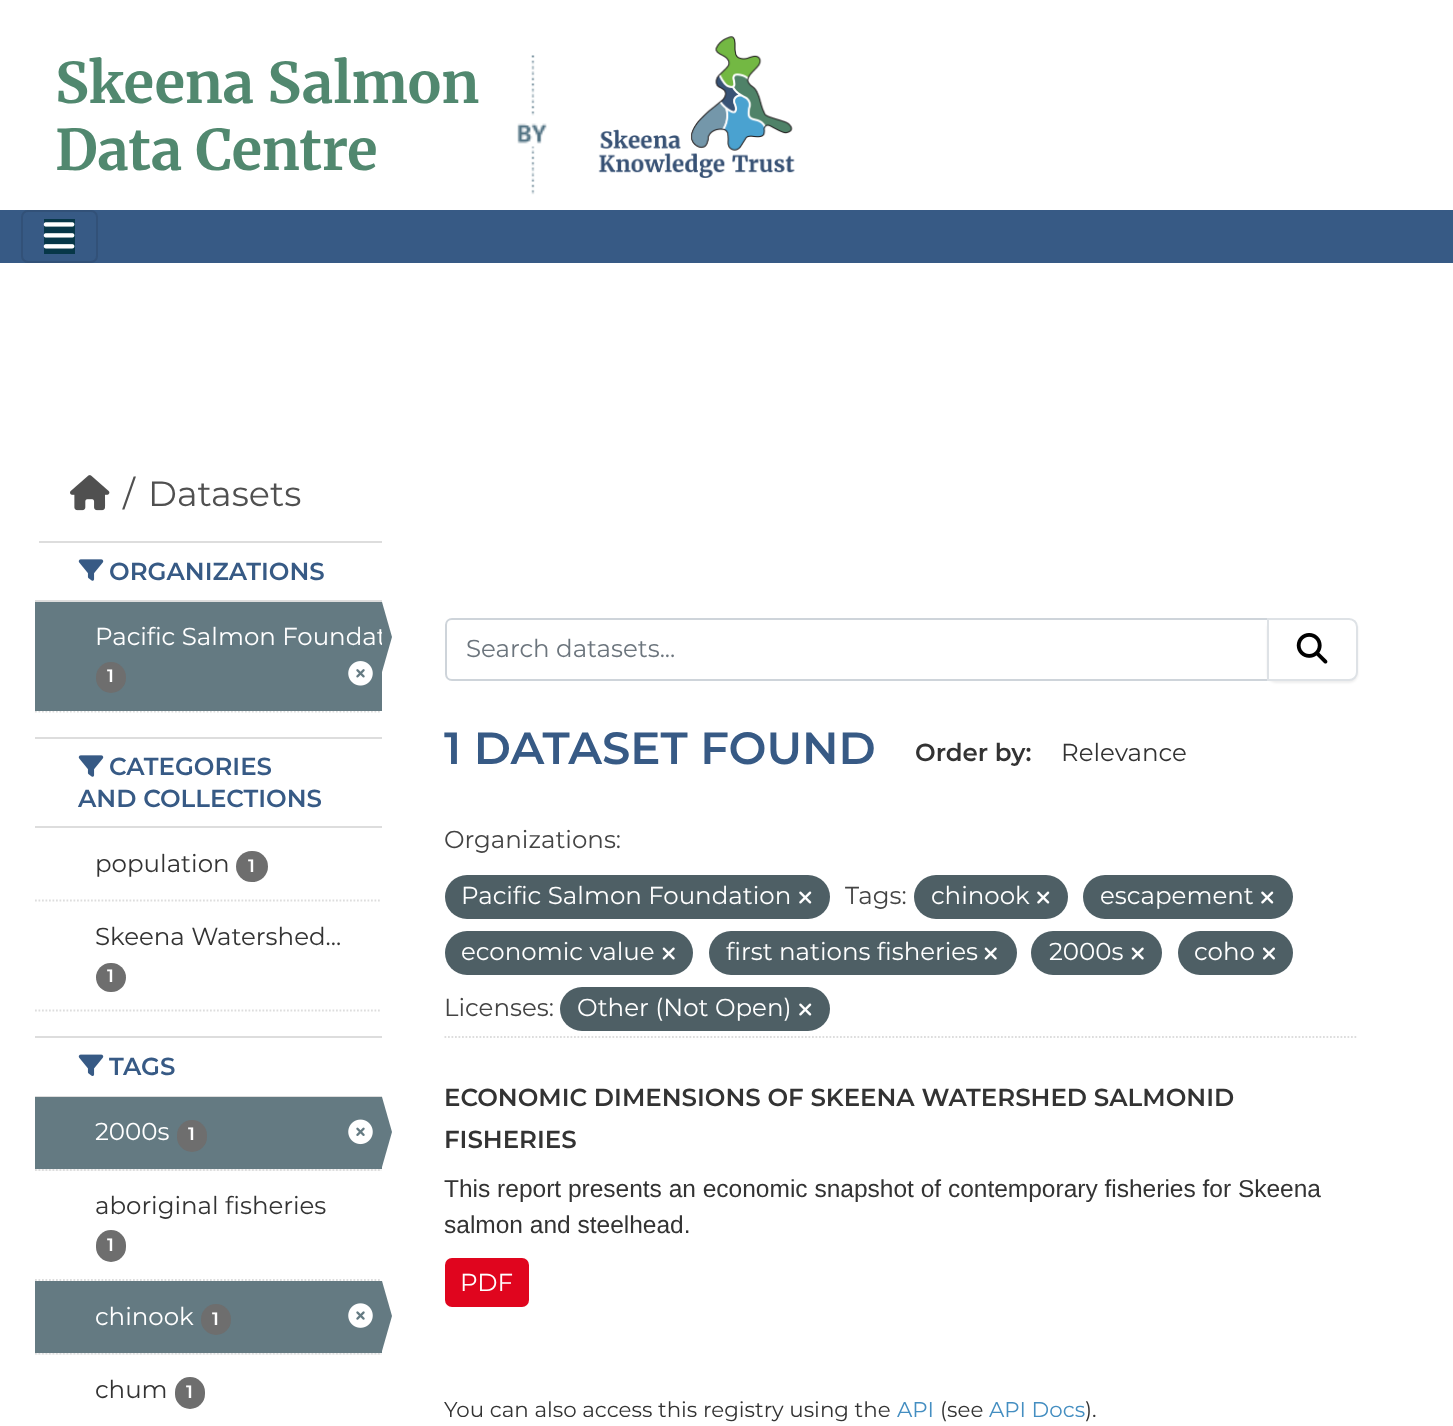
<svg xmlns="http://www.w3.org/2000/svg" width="1453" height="1426">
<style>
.a{font:bold 56px Merriweather;fill:#51886f}
.b{font:35px Montserrat;fill:#505050}
.c{font:600 24.5px Montserrat;fill:#375a85}
.d{font:24.5px Montserrat;fill:#fff}
.e{font:600 18px Montserrat;fill:#fff}
.f{font:24.5px Montserrat;fill:#333}
.g{font:24.5px Montserrat;fill:#6c757d}
.h{font:600 45.1px Montserrat;fill:#375a85}
.i{font:600 24.5px Montserrat;fill:#333}
.j{font:24.5px Montserrat;fill:#444}
.k{font:24.5px Liberation Sans;fill:#333}
.l{font:21.4px Montserrat;fill:#333}
.m{font:21.4px Montserrat;fill:#448ec1}
</style>
<rect width="100%" height="100%" fill="#fff"/>
<image href="1.png" x="517" y="55" width="30" height="140"/>
<image href="2.png" x="598" y="36" width="197" height="142"/>
<path fill="#375a85" d="M0 210h1453v53H0z"/>
<rect fill="none" stroke="#325178" stroke-width="2" x="22" y="211" width="75" height="51" rx="6"/>
<path fill="#073748" d="M44 219h31v35H44z"/>
<image href="3.png" x="43" y="222" width="32" height="27"/>
<image href="4.png" x="70" y="475" width="40" height="36"/>
<path fill="#ddd" d="M39 541h343v2H39z"/>
<path fill="#ddd" d="M35 600h347v2H35z"/>
<image href="5.png" x="78" y="559" width="26" height="22"/>
<path fill="none" stroke="#ddd" stroke-width="1.8" stroke-dasharray="1.75 1.75" d="M35 711.5h346.5"/>
<path fill="#647a82" d="M35 602h347v109H35z"/>
<rect fill="#6e6e6e" x="96" y="662" width="30" height="31" rx="15"/>
<image href="6.png" x="348" y="661" width="25" height="25"/>
<path fill="#ddd" d="M35 737h347v2H35z"/>
<path fill="#ddd" d="M35 826h347v2H35z"/>
<image href="5.png" x="78" y="755" width="26" height="22"/>
<path fill="none" stroke="#ddd" stroke-width="1.8" stroke-dasharray="1.75 1.75" d="M35 900.5h346.5"/>
<rect fill="#6e6e6e" x="236" y="851" width="32" height="31" rx="15.5"/>
<rect fill="#6e6e6e" x="96" y="963" width="30" height="29" rx="14.5"/>
<path fill="none" stroke="#ddd" stroke-width="1.8" stroke-dasharray="1.75 1.75" d="M35 1010.5h346.5"/>
<path fill="#ddd" d="M35 1036h347v2H35z"/>
<path fill="#ddd" d="M35 1096h347v1H35z"/>
<image href="7.png" x="78" y="1054" width="26" height="22"/>
<path fill="#f6f6f6" d="M35 1169h347v2H35z"/>
<path fill="none" stroke="#ddd" stroke-width="1.8" stroke-dasharray="1.75 1.75" d="M35 1170h346.5"/>
<path fill="#647a82" d="M35 1097h347v72H35z"/>
<rect fill="#6e6e6e" x="177" y="1120" width="30" height="32" rx="15"/>
<image href="8.png" x="348" y="1119" width="25" height="26"/>
<path fill="#647a82" d="M382 1167v-70l10 35z"/>
<path fill="none" stroke="#ddd" stroke-width="1.8" stroke-dasharray="1.75 1.75" d="M35 1280h346.5"/>
<rect fill="#6e6e6e" x="96" y="1230" width="30" height="32" rx="15"/>
<path fill="#f6f6f6" d="M35 1353h347v2H35z"/>
<path fill="none" stroke="#ddd" stroke-width="1.8" stroke-dasharray="1.75 1.75" d="M35 1353.5h346.5"/>
<path fill="#647a82" d="M35 1281h347v72H35z"/>
<rect fill="#6e6e6e" x="201" y="1304" width="30" height="31" rx="15"/>
<image href="9.png" x="348" y="1303" width="25" height="25"/>
<path fill="#647a82" d="M382 1351v-70l10 35z"/>
<rect fill="#6e6e6e" x="175" y="1377" width="30" height="32" rx="15"/>
<path fill="none" stroke="#ddd" stroke-width="1.8" stroke-dasharray="1.75 1.75" d="M444.5 1037h913.5"/>
<path fill="none" stroke="#ced4da" stroke-width="2" d="M452 619h816v61h-816c-3.5 0-6-2.5-6-6v-49c0-3.5 2.5-6 6-6z"/>
<rect fill="#00000012" filter="blur(1px)" x="1267" y="620" width="91" height="63" rx="9"/>
<path fill="#fff" stroke="#dee2e6" stroke-width="2" d="M1268 619h81c4.5 0 8 3.5 8 8v45c0 4.5-3.5 8-8 8h-81z"/>
<image href="10.png" x="1296" y="633" width="32" height="31"/>
<rect fill="#4e5f65" x="445" y="875" width="385" height="44" rx="22"/>
<image href="11.png" x="799" y="891" width="13" height="13"/>
<rect fill="#4e5f65" x="914" y="875" width="154" height="44" rx="22"/>
<image href="11.png" x="1037" y="891" width="13" height="13"/>
<rect fill="#4e5f65" x="1083" y="875" width="210" height="44" rx="22"/>
<image href="11.png" x="1261" y="891" width="13" height="13"/>
<rect fill="#4e5f65" x="445" y="931" width="248" height="44" rx="22"/>
<image href="12.png" x="662" y="947" width="13" height="13"/>
<rect fill="#4e5f65" x="709" y="931" width="308" height="44" rx="22"/>
<image href="12.png" x="984" y="947" width="13" height="13"/>
<rect fill="#4e5f65" x="1031" y="931" width="131" height="44" rx="22"/>
<image href="12.png" x="1131" y="947" width="13" height="13"/>
<rect fill="#4e5f65" x="1178" y="931" width="115" height="44" rx="22"/>
<image href="13.png" x="1263" y="947" width="12" height="13"/>
<rect fill="#4e5f65" x="560" y="987" width="270" height="44" rx="22"/>
<image href="11.png" x="799" y="1003" width="13" height="13"/>
<rect fill="#e0051e" x="445" y="1258" width="84" height="49" rx="7"/>
<text class="a" x="55" y="103">Skeena Salmon</text>
<text class="a" x="55" y="170">Data Centre</text>
<text class="b" x="123" y="506">/</text>
<text class="b" x="148" y="506">Datasets</text>
<text class="c" x="109" y="580">ORGANIZATIONS</text>
<text class="d" x="95" y="645">Pacific Salmon Foundat</text>
<path fill="#647a82" d="M382 672v-70l10 35z"/>
<text class="e" x="107" y="682">1</text>
<text class="c" x="109" y="775">CATEGORIES</text>
<text class="c" x="78" y="807">AND COLLECTIONS</text>
<text class="f" x="95" y="872">population</text>
<text class="e" x="248" y="872">1</text>
<text class="f" x="95" y="945">Skeena Watershed...</text>
<text class="e" x="107" y="982">1</text>
<text class="c" x="109" y="1075">TAGS</text>
<text class="d" x="95" y="1140">2000s</text>
<text class="e" x="188" y="1140">1</text>
<text class="f" x="95" y="1214">aboriginal fisheries</text>
<text class="e" x="107" y="1251">1</text>
<text class="d" x="95" y="1325">chinook</text>
<text class="e" x="212" y="1325">1</text>
<text class="f" x="95" y="1398">chum</text>
<text class="e" x="186" y="1398">1</text>
<text class="g" x="466" y="657">Search datasets...</text>
<text class="h" x="444" y="764">1 DATASET FOUND</text>
<text class="i" x="915" y="761">Order by:</text>
<text class="f" x="1061" y="761">Relevance</text>
<text class="j" x="444" y="848">Organizations:</text>
<text class="d" x="461" y="904">Pacific Salmon Foundation</text>
<text class="j" x="845" y="904">Tags:</text>
<text class="d" x="931" y="904">chinook</text>
<text class="d" x="1100" y="904">escapement</text>
<text class="d" x="461" y="960">economic value</text>
<text class="d" x="726" y="960">first nations fisheries</text>
<text class="d" x="1049" y="960">2000s</text>
<text class="d" x="1194" y="960">coho</text>
<text class="j" x="444" y="1016">Licenses:</text>
<text class="d" x="577" y="1016">Other (Not Open)</text>
<text class="i" x="444" y="1106">ECONOMIC DIMENSIONS OF SKEENA WATERSHED SALMONID</text>
<text class="i" x="444" y="1148">FISHERIES</text>
<text class="k" x="444" y="1197">This report presents an economic snapshot of contemporary fisheries for Skeena</text>
<text class="k" x="444" y="1233">salmon and steelhead.</text>
<text class="d" x="460" y="1291">PDF</text>
<text class="l" x="444" y="1417">You can also access this registry using the</text>
<text class="m" x="897" y="1417">API</text>
<text class="l" x="940" y="1417">(see</text>
<text class="m" x="989" y="1417">API Docs</text>
<text class="l" x="1085" y="1417">).</text>
</svg>
